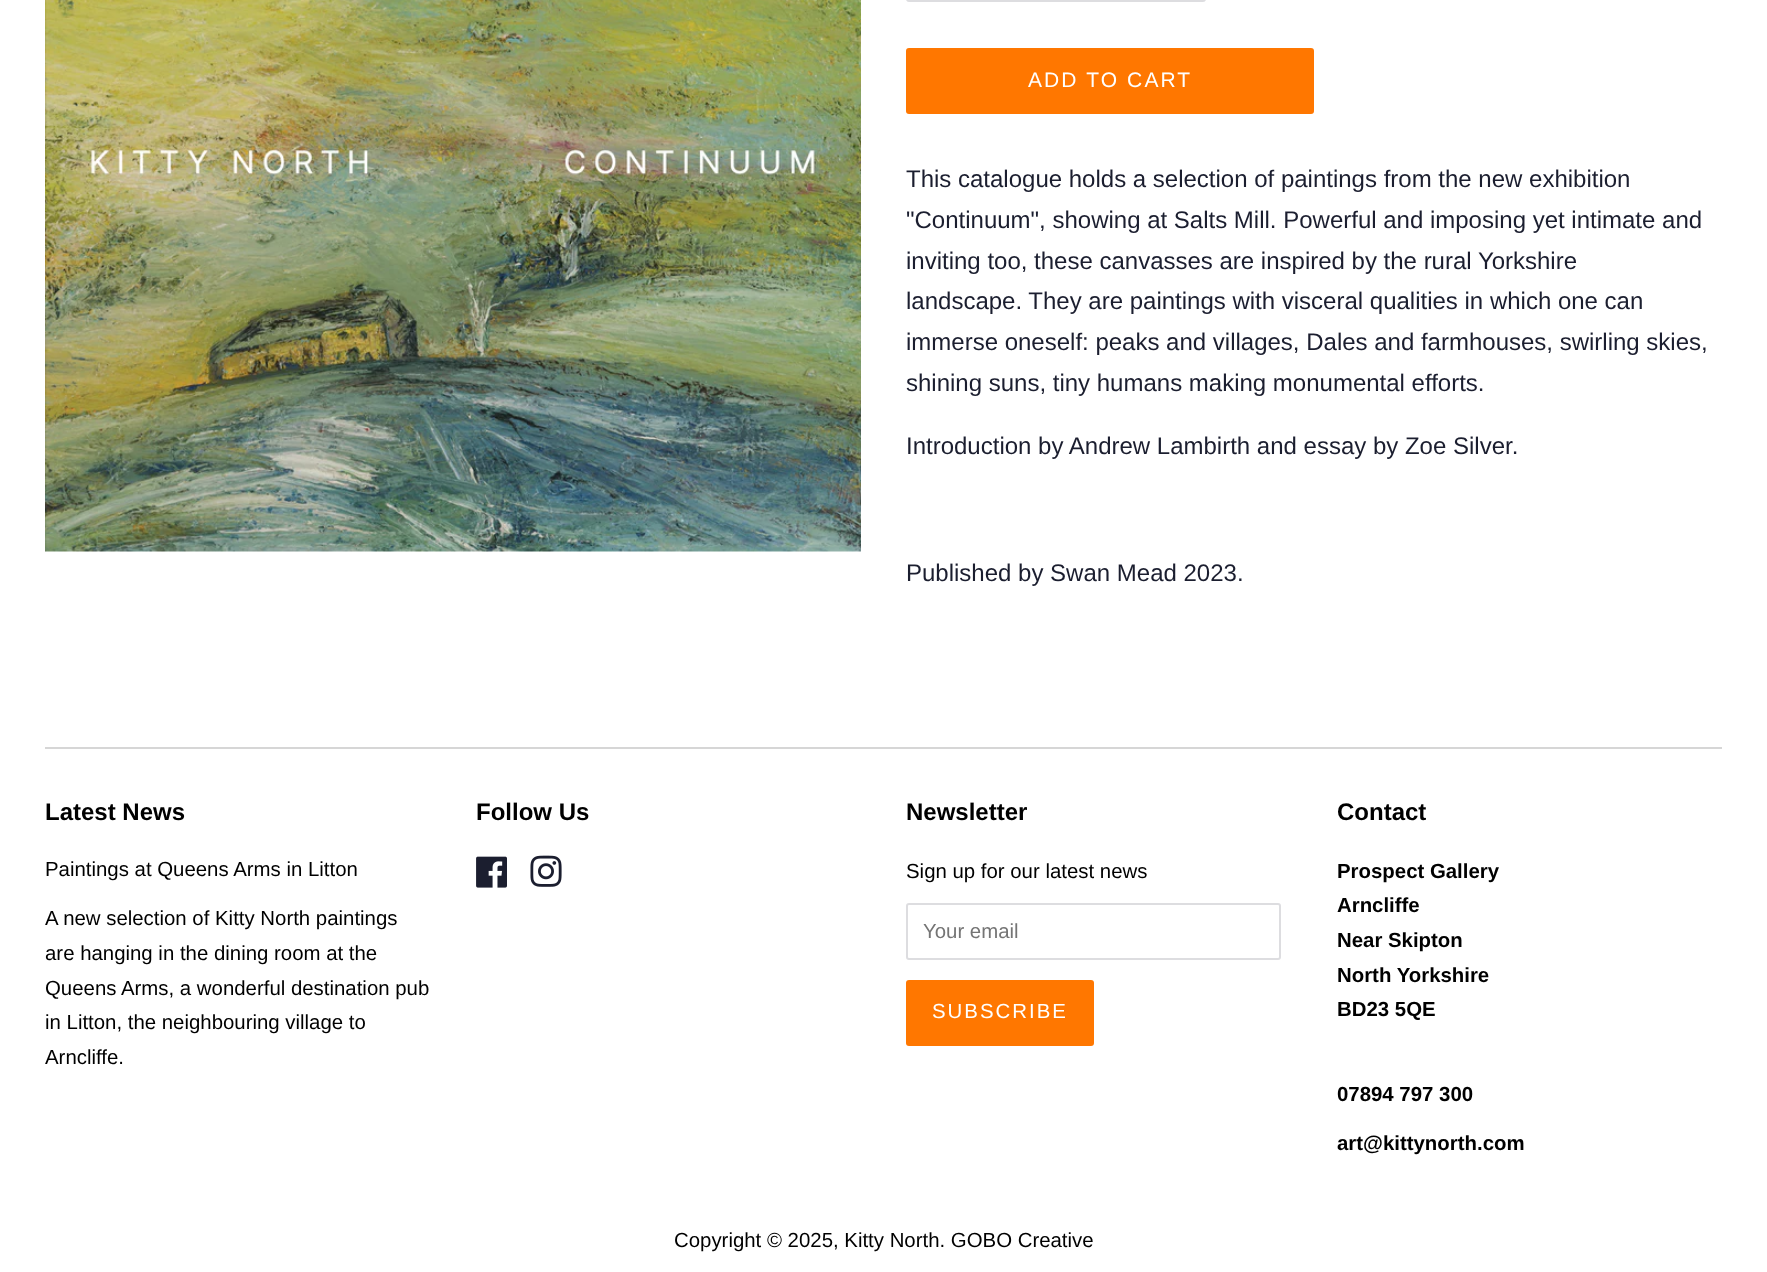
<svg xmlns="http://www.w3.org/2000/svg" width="1767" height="1272">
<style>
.a{font:21px Liberation Sans;letter-spacing:2.1px;fill:#fff}
.b{font:24px Liberation Sans;fill:#1b1e2f}
.c{font:bold 24px Liberation Sans;fill:#000}
.d{font:20.4px Liberation Sans;fill:#000}
.e{font:20.4px Liberation Sans;fill:#757575}
.f{font:20.4px Liberation Sans;letter-spacing:2px;fill:#fff}
.g{font:bold 20.4px Liberation Sans;fill:#000}
</style>
<rect width="100%" height="100%" fill="#fff"/>
<image href="1.png" x="45" y="0" width="816" height="552"/>
<rect fill="none" stroke="#dddde0" stroke-width="2" x="907" y="-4" width="298" height="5" rx="2"/>
<rect fill="#f70" x="906" y="48" width="408" height="66" rx="3"/>
<path fill="#d6d6d6" d="M45 747h1677v2H45z"/>
<image href="2.png" x="476" y="856" width="31" height="32"/>
<image href="3.png" x="530" y="855" width="32" height="32"/>
<rect fill="none" stroke="#dddde0" stroke-width="2" x="907" y="904" width="373" height="55" rx="2"/>
<rect fill="#f70" x="906" y="980" width="188" height="66" rx="3"/>
<text class="a" x="1028" y="87">ADD TO CART</text>
<text class="b" x="906" y="187">This catalogue holds a selection of paintings from the new exhibition</text>
<text class="b" x="906" y="228">"Continuum", showing at Salts Mill. Powerful and imposing yet intimate and</text>
<text class="b" x="906" y="269">inviting too, these canvasses are inspired by the rural Yorkshire</text>
<text class="b" x="906" y="309">landscape. They are paintings with visceral qualities in which one can</text>
<text class="b" x="906" y="350">immerse oneself: peaks and villages, Dales and farmhouses, swirling skies,</text>
<text class="b" x="906" y="391">shining suns, tiny humans making monumental efforts.</text>
<text class="b" x="906" y="454">Introduction by Andrew Lambirth and essay by Zoe Silver.</text>
<text class="b" x="906" y="581">Published by Swan Mead 2023.</text>
<text class="c" x="45" y="820">Latest News</text>
<text class="d" x="45" y="876">Paintings at Queens Arms in Litton</text>
<text class="d" x="45" y="925">A new selection of Kitty North paintings</text>
<text class="d" x="45" y="960">are hanging in the dining room at the</text>
<text class="d" x="45" y="995">Queens Arms, a wonderful destination pub</text>
<text class="d" x="45" y="1029">in Litton, the neighbouring village to</text>
<text class="d" x="45" y="1064">Arncliffe.</text>
<text class="c" x="476" y="820">Follow Us</text>
<text class="c" x="906" y="820">Newsletter</text>
<text class="d" x="906" y="878">Sign up for our latest news</text>
<text class="e" x="923" y="938">Your email</text>
<text class="f" x="932" y="1018">SUBSCRIBE</text>
<text class="c" x="1337" y="820">Contact</text>
<text class="g" x="1337" y="878">Prospect Gallery</text>
<text class="g" x="1337" y="912">Arncliffe</text>
<text class="g" x="1337" y="947">Near Skipton</text>
<text class="g" x="1337" y="982">North Yorkshire</text>
<text class="g" x="1337" y="1016">BD23 5QE</text>
<text class="g" x="1337" y="1101">07894 797 300</text>
<text class="g" x="1337" y="1150">art@kittynorth.com</text>
<text class="d" x="674" y="1247">Copyright © 2025, Kitty North. GOBO Creative</text>
</svg>
